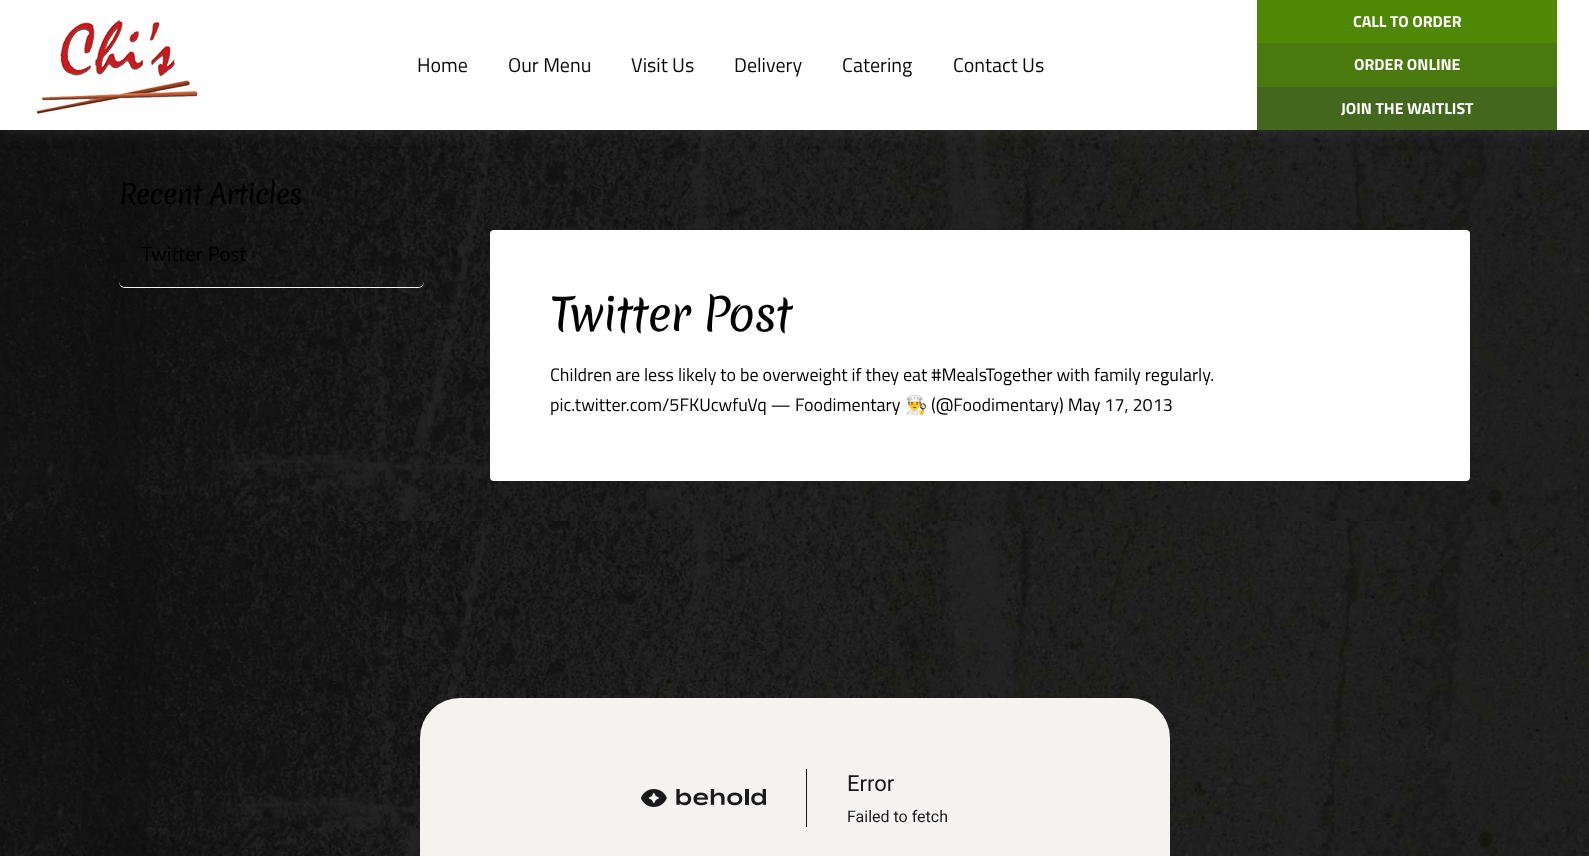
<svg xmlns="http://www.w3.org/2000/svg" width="1589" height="856">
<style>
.a{font:20px Titillium Web;fill:#0a0a0a}
.b{font:bold 16px Titillium Web;fill:#fff}
.c{font:27px Merienda;letter-spacing:-1px;fill:#000}
.d{font:20px Lato;fill:#000}
.e{font:45px Merienda;letter-spacing:-1.5px;fill:#000}
.f{font:18px Titillium Web;fill:#000}
.g{font:18px Noto Color Emoji;fill:#000}
.h{font:22px Roboto;fill:#1a1a1a}
.i{font:16px Roboto;fill:#1a1a1a}
</style>
<defs>
<clipPath id="clip1"><path d="M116 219h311v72h-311zm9 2h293c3.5 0 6 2.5 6 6v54c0 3.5-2.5 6-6 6h-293c-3.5 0-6-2.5-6-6v-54c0-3.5 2.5-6 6-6z" clip-rule="evenodd"/></clipPath>
</defs>
<rect width="100%" height="100%" fill="#fff"/>
<image href="4.png" x="0" y="130" width="1589" height="391"/>
<path fill="#4545456b" filter="blur(8px)" d="M0 1h1589v130H0z"/>
<path fill="#fff" d="M0 0h1589v130H0z"/>
<image href="1.png" x="36" y="20" width="162" height="95"/>
<path fill="#4f8804" d="M1257 0h300v43H1257z"/>
<path fill="#4a7a0d" d="M1257 43h300v44H1257z"/>
<path fill="#43671c" d="M1257 87h300v43H1257z"/>
<g clip-path="url(#clip1)">
<rect fill="#fffffff2" filter="blur(0.5px)" x="119" y="222" width="305" height="66" rx="6"/>
</g>
<rect fill="none" stroke="#0000001a" x="119.5" y="221.5" width="304" height="65" rx="5.5"/>
<rect fill="#fff" x="490" y="230" width="980" height="251" rx="4"/>
<image href="2.png" x="0" y="521" width="1589" height="335"/>
<rect fill="#f4f3f0" x="420" y="698" width="750" height="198" rx="40"/>
<path fill="#1a1a1a" d="M806 769h1v58H806z"/>
<image href="3.png" x="641" y="789" width="125" height="18"/>
<text class="a" x="417" y="72">Home</text>
<text class="a" x="508" y="72">Our Menu</text>
<text class="a" x="631" y="72">Visit Us</text>
<text class="a" x="734" y="72">Delivery</text>
<text class="a" x="842" y="72">Catering</text>
<text class="a" x="953" y="72">Contact Us</text>
<text class="b" x="1353" y="27">CALL TO ORDER</text>
<text class="b" x="1354" y="70">ORDER ONLINE</text>
<text class="b" x="1341" y="114">JOIN THE WAITLIST</text>
<text class="c" x="119" y="204">Recent Articles</text>
<text class="d" x="141" y="261">Twitter Post</text>
<text class="e" x="550" y="331">Twitter Post</text>
<text class="f" x="550" y="381">Children are less likely to be overweight if they eat #MealsTogether with family regularly.</text>
<text class="f" x="550" y="411">pic.twitter.com/5FKUcwfuVq — Foodimentary</text>
<text class="g" x="905" y="411">👨‍🍳</text>
<text class="f" x="931" y="411">(@Foodimentary) May 17, 2013</text>
<text class="h" x="847" y="791">Error</text>
<text class="i" x="847" y="822">Failed to fetch</text>
</svg>
